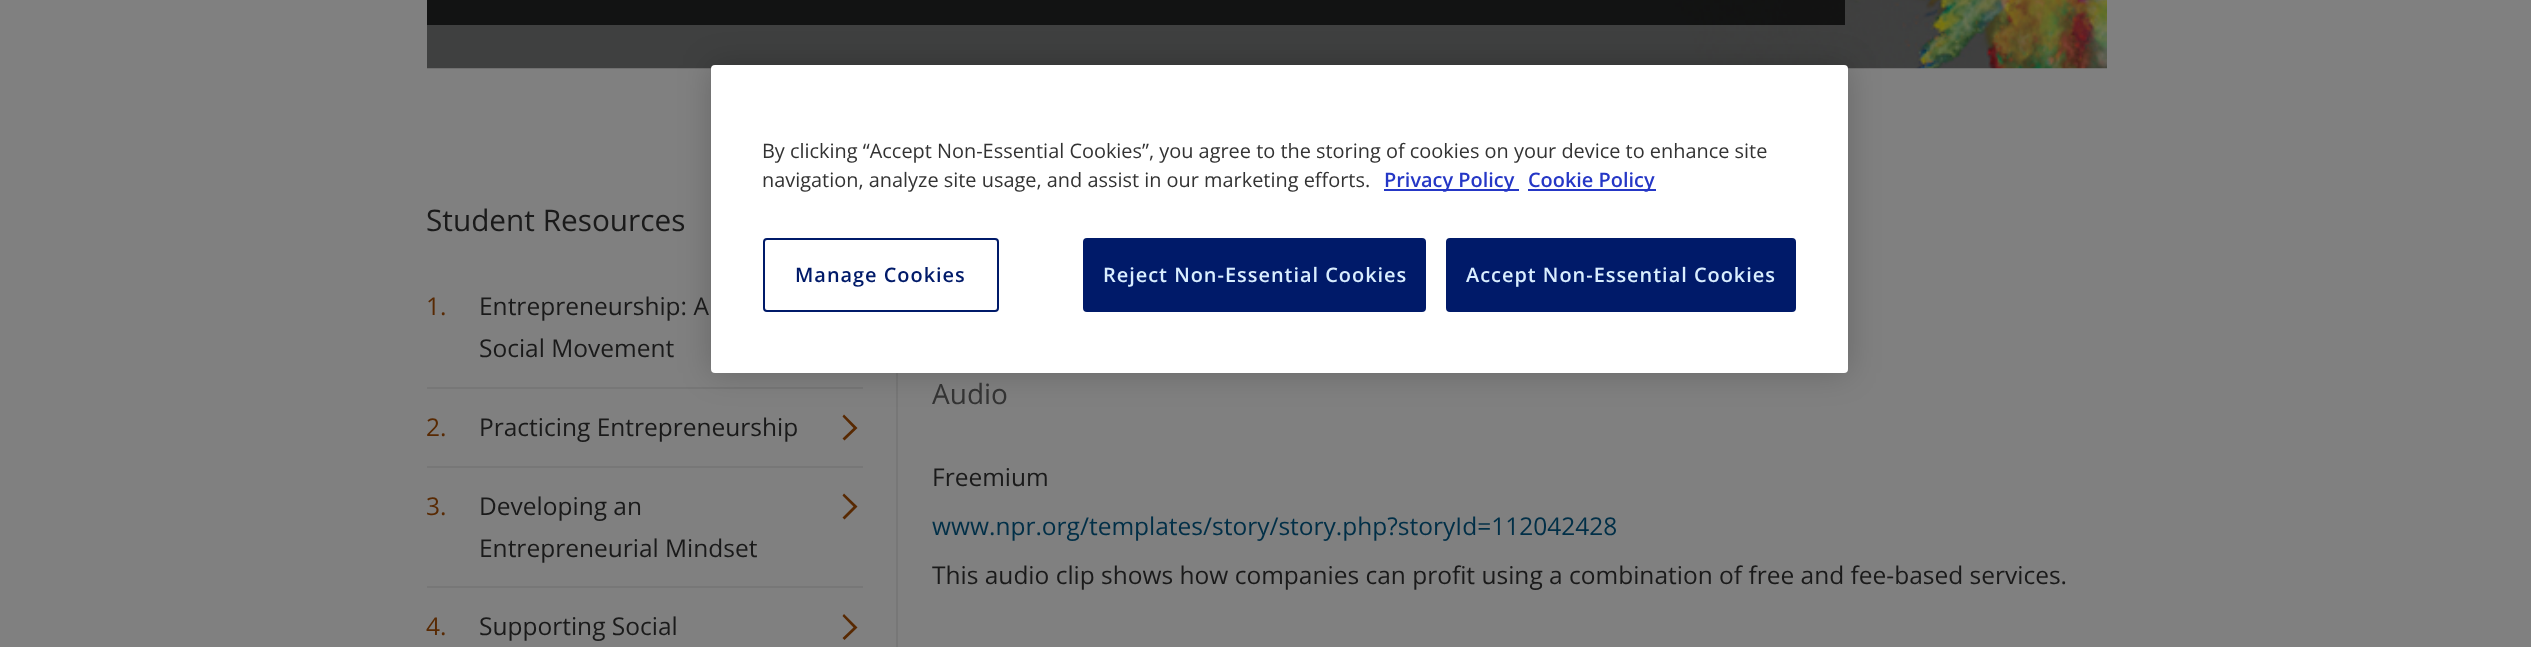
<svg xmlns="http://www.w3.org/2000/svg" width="2531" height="647">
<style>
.a{font:19.92px Open Sans;fill:#333}
.b{font:600 19.92px Open Sans;fill:#2537c6}
.c{font:600 19.92px Open Sans;letter-spacing:1px;fill:#001a69}
.d{font:600 19.92px Open Sans;letter-spacing:1px;fill:#d9eeff}
.e{font:29.75px Open Sans;fill:#1a1a1a}
.f{font:24.5px Open Sans;fill:#582902}
.g{font:24.5px Open Sans;fill:#1a1a1a}
.h{font:28px Open Sans;fill:#333}
.i{font:24.5px Open Sans;fill:#012f47}
</style>
<rect width="100%" height="100%" fill="#808080"/>
<image href="1.png" x="427" y="0" width="1680" height="69"/>
<path fill="#000000b3" d="M427 0h1418v25H427z"/>
<path fill="#777" d="M427 387h436v2H427z"/>
<path fill="#582902" d="M857.5 428l-13.5-13.5l-1.5 2l11 11.5l-11 10.5l2 2z"/>
<path fill="#777" d="M896 373h2v274H896z"/>
<rect fill="#00000033" filter="blur(16px)" x="711" y="65" width="1137" height="308" rx="4"/>
<rect fill="#fff" x="711" y="65" width="1137" height="308" rx="4"/>
<path fill="#2537c6" d="M1384 189h135v2H1384z"/>
<path fill="#2537c6" d="M1528 189h128v2H1528z"/>
<rect fill="none" stroke="#001a69" stroke-width="2" x="764" y="239" width="234" height="72" rx="3"/>
<rect fill="#001a69" stroke="#001a69" stroke-width="2" x="1084" y="239" width="341" height="72" rx="3"/>
<rect fill="#001a69" stroke="#001a69" stroke-width="2" x="1447" y="239" width="348" height="72" rx="3"/>
<path fill="#777" d="M427 466h436v2H427z"/>
<path fill="#777" d="M427 586h436v2H427z"/>
<path fill="#582902" d="M857.5 506.5l-13.5-13l-1.5 2l11 11l-11 11l2 2z"/>
<path fill="#582902" d="M857.5 627.5l-13.5-13.5l-1.5 2l11 11.5l-11 10.5l2 2z"/>
<text class="a" x="762" y="158">By clicking “Accept Non-Essential Cookies”, you agree to the storing of cookies on your device to enhance site</text>
<text class="a" x="762" y="187">navigation, analyze site usage, and assist in our marketing efforts.</text>
<text class="b" x="1384" y="187">Privacy Policy</text>
<text class="b" x="1528" y="187">Cookie Policy</text>
<text class="c" x="795" y="282">Manage Cookies</text>
<text class="d" x="1103" y="282">Reject Non-Essential Cookies</text>
<text class="d" x="1466" y="282">Accept Non-Essential Cookies</text>
<text class="e" x="426" y="231">Student Resources</text>
<text class="f" x="426" y="315">1.</text>
<text class="g" x="479" y="315">Entrepreneurship: A</text>
<text class="g" x="479" y="357">Social Movement</text>
<text class="f" x="426" y="436">2.</text>
<text class="g" x="479" y="436">Practicing Entrepreneurship</text>
<text class="f" x="426" y="515">3.</text>
<text class="g" x="479" y="515">Developing an</text>
<text class="g" x="479" y="557">Entrepreneurial Mindset</text>
<text class="f" x="426" y="635">4.</text>
<text class="g" x="479" y="635">Supporting Social</text>
<text class="h" x="932" y="404">Audio</text>
<text class="g" x="932" y="486">Freemium</text>
<text class="i" x="932" y="535">www.npr.org/templates/story/story.php?storyId=112042428</text>
<text class="g" x="932" y="584">This audio clip shows how companies can profit using a combination of free and fee-based services.</text>
</svg>
